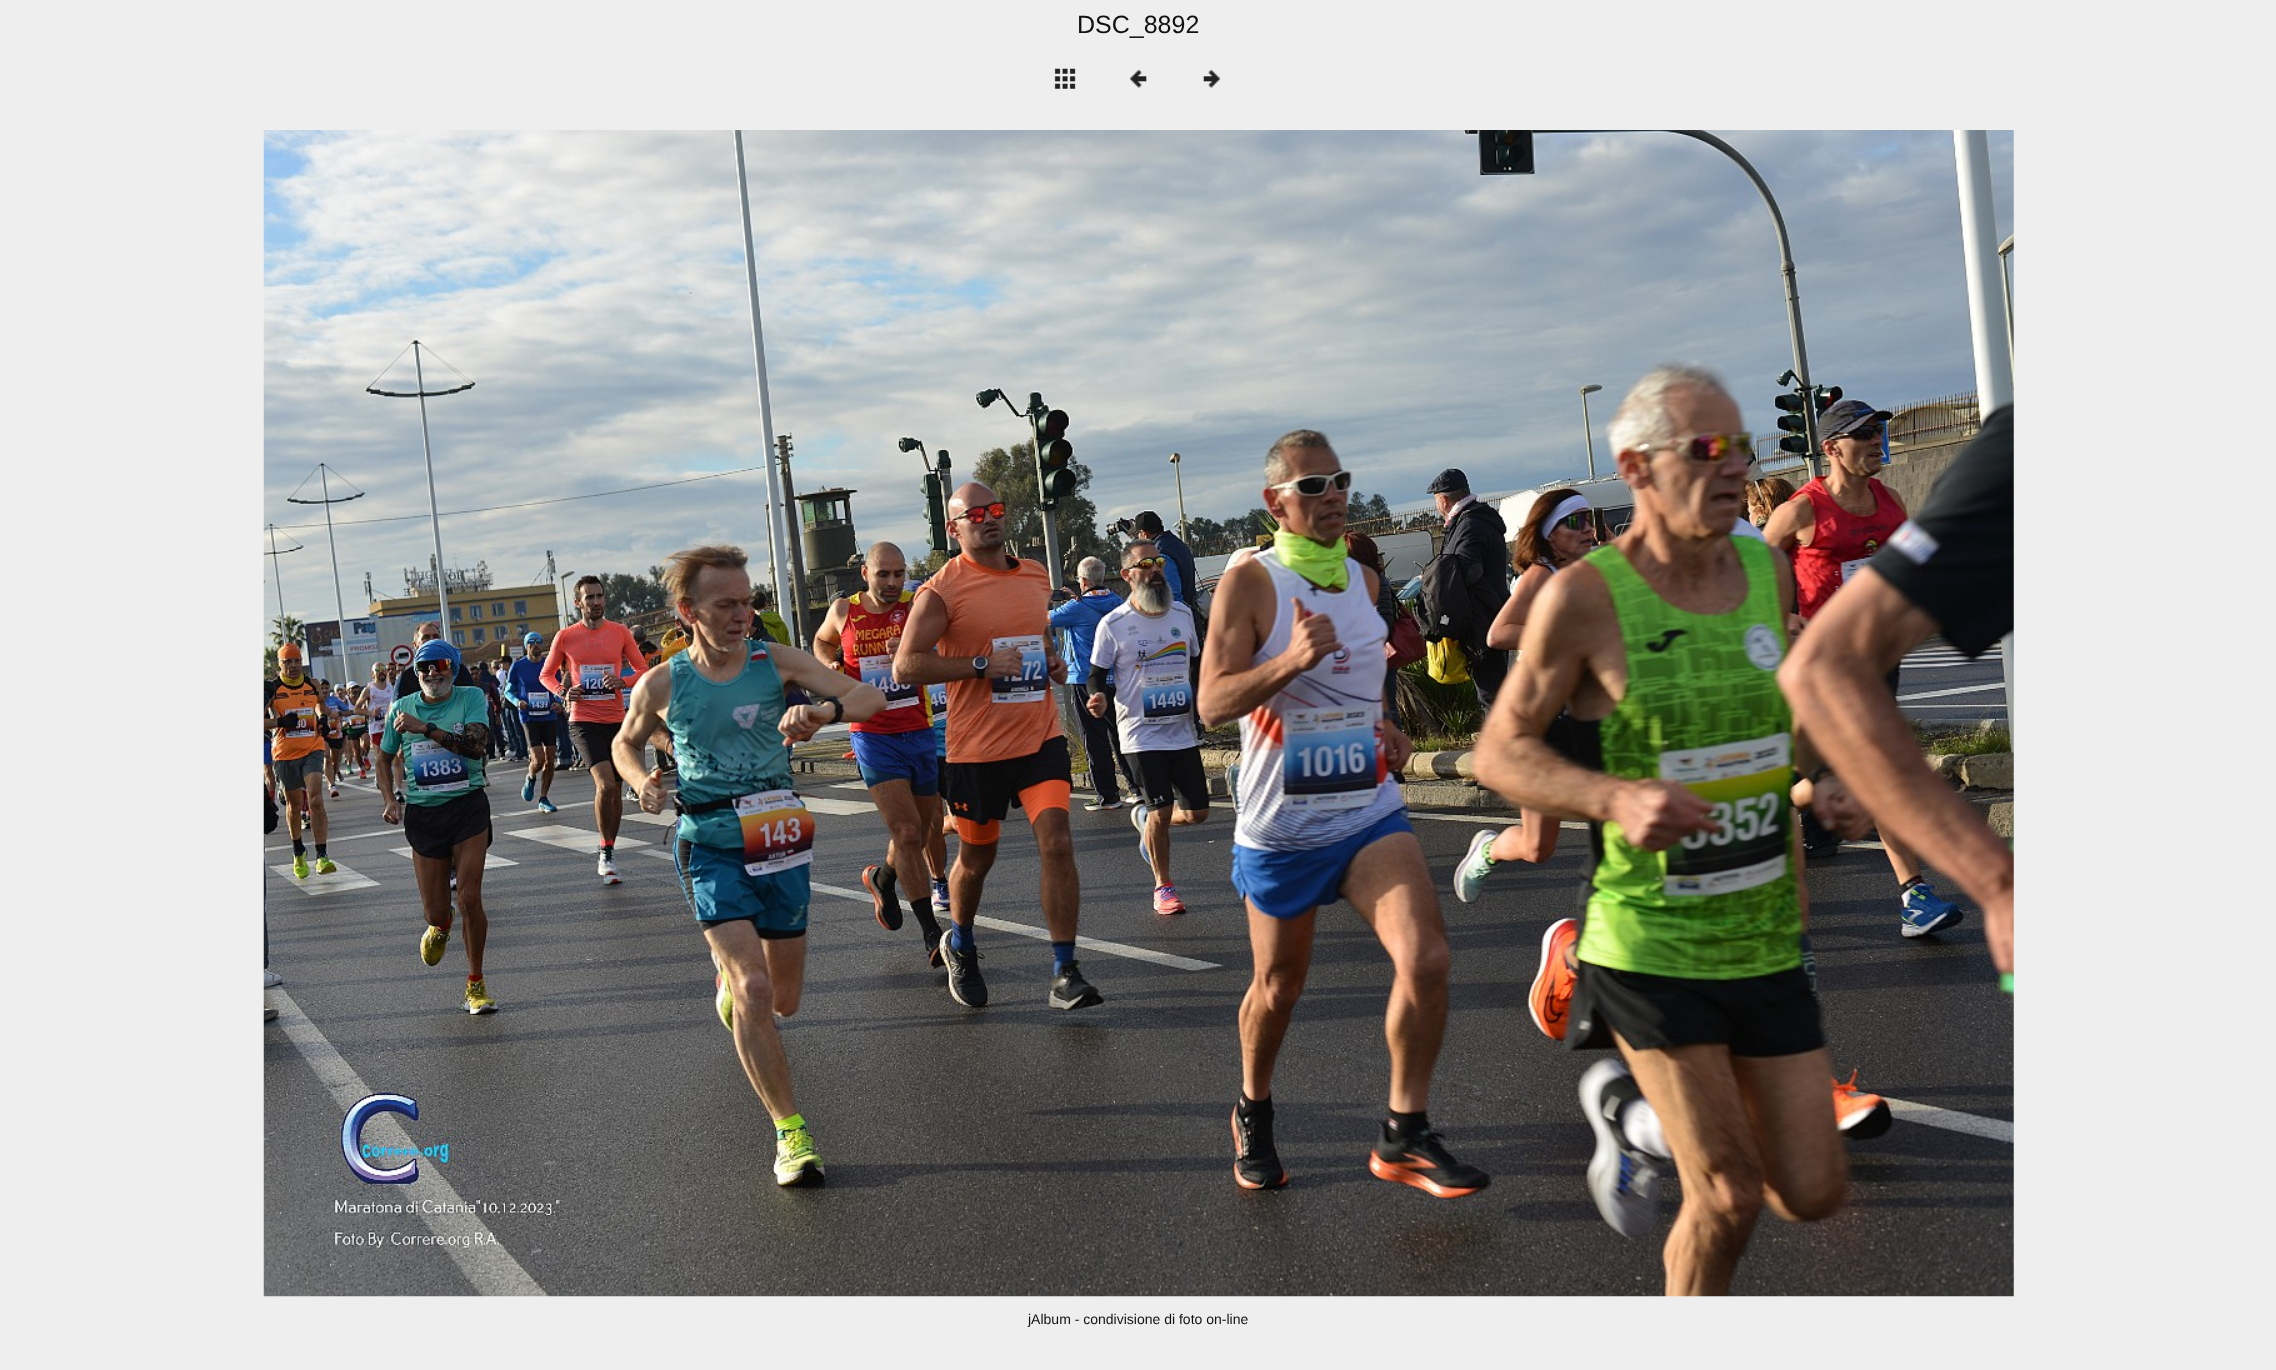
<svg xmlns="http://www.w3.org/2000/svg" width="2276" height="1370">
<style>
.a{font:25px Liberation Sans;fill:#111}
.b{font:14px Liberation Sans;fill:#111}
</style>
<rect width="100%" height="100%" fill="#eee"/>
<image href="1.png" x="1054" y="68" width="22" height="21"/>
<image href="2.png" x="1129" y="69" width="18" height="19"/>
<image href="3.png" x="1203" y="69" width="18" height="19"/>
<image href="4.png" x="263" y="130" width="1751" height="1167"/>
<text class="a" x="1077" y="33">DSC_8892</text>
<text class="b" x="1028" y="1324">jAlbum - condivisione di foto on-line</text>
</svg>
